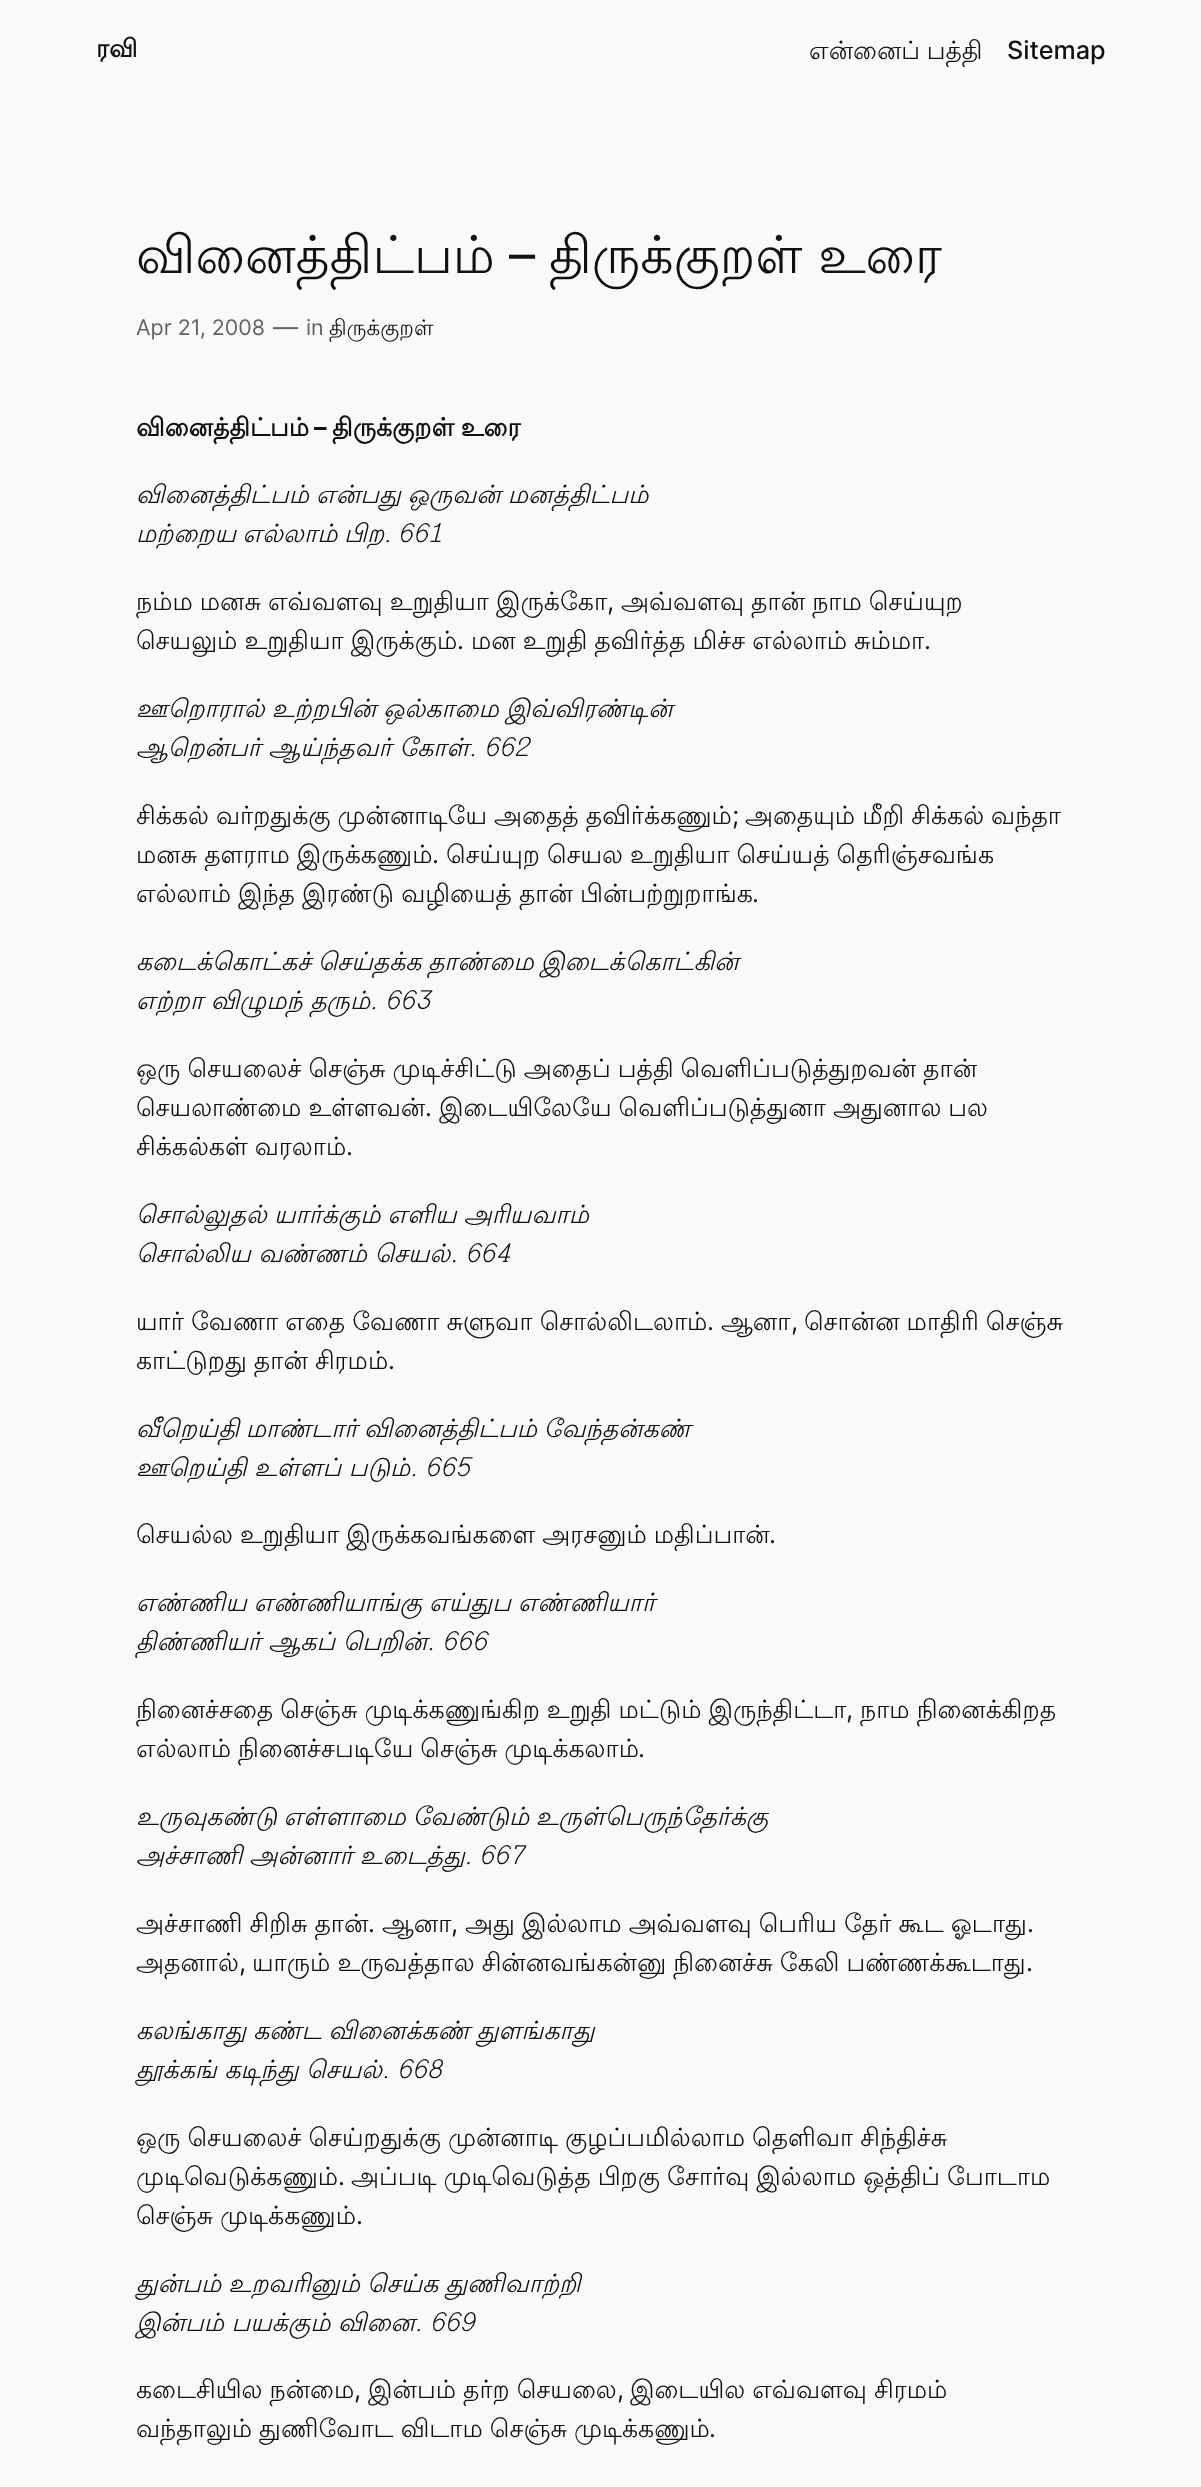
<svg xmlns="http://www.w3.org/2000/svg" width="1201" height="2487">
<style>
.a{font:bold 25px Lohit Tamil;fill:#111}
.b{font:25.2px Lohit Tamil;fill:#111}
.c{font:500 25.2px Inter;fill:#111}
.d{font:52.25px Lohit Tamil;fill:#111}
.e{font:52.25px Inter;fill:#111}
.f{font:21.5px Inter;fill:#636363}
.g{font:25.2px Inter;fill:#636363}
.h{font:21.5px Lohit Tamil;fill:#111}
.i{font:bold 25.2px Lohit Tamil;fill:#111}
.j{font:bold 25.2px Inter;fill:#111}
.k{font:italic 25.2px Lohit Tamil;fill:#111}
.l{font:25.2px Inter;fill:#111}
</style>
<rect width="100%" height="100%" fill="#f9f9f9"/>
<text class="a" x="96" y="57">ரவி</text>
<text class="b" x="809" y="59" word-spacing="-1">என்னைப் பத்தி</text>
<text class="c" x="1007" y="59">Sitemap</text>
<text class="d" x="136" y="273">வினைத்திட்பம்</text>
<text class="e" x="509" y="273">–</text>
<text class="d" x="549" y="273">திருக்குறள் உரை</text>
<text class="f" x="136" y="335">Apr 21, 2008</text>
<text class="g" x="273" y="336">—</text>
<text class="f" x="306" y="335">in</text>
<text class="h" x="329" y="335">திருக்குறள்</text>
<text class="i" x="136" y="436">வினைத்திட்பம்</text>
<text class="j" x="314" y="436">–</text>
<text class="i" x="332" y="436" word-spacing="-1">திருக்குறள் உரை</text>
<text class="k" x="136" y="503" word-spacing="-0.5">வினைத்திட்பம் என்பது ஒருவன் மனத்திட்பம்</text>
<text class="k" x="136" y="542" word-spacing="-1">மற்றைய எல்லாம் பிற. 661</text>
<text class="b" x="136" y="610" word-spacing="-0.5">நம்ம மனசு எவ்வளவு உறுதியா இருக்கோ</text>
<text class="l" x="607" y="610">,</text>
<text class="b" x="621" y="610" word-spacing="-0.5">அவ்வளவு தான் நாம செய்யுற</text>
<text class="b" x="136" y="649" word-spacing="-0.5">செயலும் உறுதியா இருக்கும்</text>
<text class="l" x="457" y="649">.</text>
<text class="b" x="471" y="649" word-spacing="-0.5">மன உறுதி தவிர்த்த மிச்ச எல்லாம் சும்மா</text>
<text class="l" x="924" y="649">.</text>
<text class="k" x="136" y="717" word-spacing="-0.5">ஊறொரால் உற்றபின் ஒல்காமை இவ்விரண்டின்</text>
<text class="k" x="136" y="756">ஆறென்பர் ஆய்ந்தவர் கோள். 662</text>
<text class="b" x="136" y="824" word-spacing="-0.5">சிக்கல் வர்றதுக்கு முன்னாடியே அதைத் தவிர்க்கணும்</text>
<text class="l" x="732" y="824">;</text>
<text class="b" x="745" y="824" word-spacing="-0.5">அதையும் மீறி சிக்கல் வந்தா</text>
<text class="b" x="136" y="863" word-spacing="-0.5">மனசு தளராம இருக்கணும்</text>
<text class="l" x="432" y="863">.</text>
<text class="b" x="446" y="863" word-spacing="-0.5">செய்யுற செயல உறுதியா செய்யத் தெரிஞ்சவங்க</text>
<text class="b" x="136" y="902" word-spacing="-0.5">எல்லாம் இந்த இரண்டு வழியைத் தான் பின்பற்றுறாங்க</text>
<text class="l" x="752" y="902">.</text>
<text class="k" x="136" y="970" word-spacing="-1">கடைக்கொட்கச் செய்தக்க தாண்மை இடைக்கொட்கின்</text>
<text class="k" x="136" y="1009">எற்றா விழுமந் தரும். 663</text>
<text class="b" x="136" y="1077" word-spacing="-0.5">ஒரு செயலைச் செஞ்சு முடிச்சிட்டு அதைப் பத்தி வெளிப்படுத்துறவன் தான்</text>
<text class="b" x="136" y="1116" word-spacing="-0.5">செயலாண்மை உள்ளவன்</text>
<text class="l" x="425" y="1116">.</text>
<text class="b" x="439" y="1116" word-spacing="-0.5">இடையிலேயே வெளிப்படுத்துனா அதுனால பல</text>
<text class="b" x="136" y="1155" word-spacing="-0.5">சிக்கல்கள் வரலாம்</text>
<text class="l" x="346" y="1155">.</text>
<text class="k" x="136" y="1223" word-spacing="-0.5">சொல்லுதல் யார்க்கும் எளிய அரியவாம்</text>
<text class="k" x="136" y="1262">சொல்லிய வண்ணம் செயல். 664</text>
<text class="b" x="136" y="1330" word-spacing="-0.5">யார் வேணா எதை வேணா சுளுவா சொல்லிடலாம்</text>
<text class="l" x="707" y="1330">.</text>
<text class="b" x="721" y="1330">ஆனா</text>
<text class="l" x="791" y="1330">,</text>
<text class="b" x="804" y="1330" word-spacing="-0.5">சொன்ன மாதிரி செஞ்சு</text>
<text class="b" x="136" y="1369" word-spacing="-0.5">காட்டுறது தான் சிரமம்</text>
<text class="l" x="388" y="1369">.</text>
<text class="k" x="136" y="1437" word-spacing="-1">வீறெய்தி மாண்டார் வினைத்திட்பம் வேந்தன்கண்</text>
<text class="k" x="136" y="1476">ஊறெய்தி உள்ளப் படும். 665</text>
<text class="b" x="136" y="1543" word-spacing="-0.5">செயல்ல உறுதியா இருக்கவங்களை அரசனும் மதிப்பான்</text>
<text class="l" x="769" y="1543">.</text>
<text class="k" x="136" y="1611" word-spacing="-0.5">எண்ணிய எண்ணியாங்கு எய்துப எண்ணியார்</text>
<text class="k" x="136" y="1650">திண்ணியர் ஆகப் பெறின். 666</text>
<text class="b" x="136" y="1718" word-spacing="-0.5">நினைச்சதை செஞ்சு முடிக்கணுங்கிற உறுதி மட்டும் இருந்திட்டா</text>
<text class="l" x="846" y="1718">,</text>
<text class="b" x="860" y="1718" word-spacing="-0.5">நாம நினைக்கிறத</text>
<text class="b" x="136" y="1757" word-spacing="-0.5">எல்லாம் நினைச்சபடியே செஞ்சு முடிக்கலாம்</text>
<text class="l" x="638" y="1757">.</text>
<text class="k" x="136" y="1825" word-spacing="-1">உருவுகண்டு எள்ளாமை வேண்டும் உருள்பெருந்தேர்க்கு</text>
<text class="k" x="136" y="1864" word-spacing="-0.5">அச்சாணி அன்னார் உடைத்து. 667</text>
<text class="b" x="136" y="1932" word-spacing="-0.5">அச்சாணி சிறிசு தான்</text>
<text class="l" x="368" y="1932">.</text>
<text class="b" x="382" y="1932">ஆனா</text>
<text class="l" x="451" y="1932">,</text>
<text class="b" x="465" y="1932" word-spacing="-0.5">அது இல்லாம அவ்வளவு பெரிய தேர் கூட ஓடாது</text>
<text class="l" x="1027" y="1932">.</text>
<text class="b" x="136" y="1971">அதனால்</text>
<text class="l" x="239" y="1971">,</text>
<text class="b" x="252" y="1971" word-spacing="-0.5">யாரும் உருவத்தால சின்னவங்கன்னு நினைச்சு கேலி பண்ணக்கூடாது</text>
<text class="l" x="1026" y="1971">.</text>
<text class="k" x="136" y="2039" word-spacing="-0.5">கலங்காது கண்ட வினைக்கண் துளங்காது</text>
<text class="k" x="136" y="2078">தூக்கங் கடிந்து செயல். 668</text>
<text class="b" x="136" y="2146" word-spacing="-0.5">ஒரு செயலைச் செய்றதுக்கு முன்னாடி குழப்பமில்லாம தெளிவா சிந்திச்சு</text>
<text class="b" x="136" y="2185">முடிவெடுக்கணும்</text>
<text class="l" x="338" y="2185">.</text>
<text class="b" x="351" y="2185" word-spacing="-0.5">அப்படி முடிவெடுத்த பிறகு சோர்வு இல்லாம ஒத்திப் போடாம</text>
<text class="b" x="136" y="2224" word-spacing="-0.5">செஞ்சு முடிக்கணும்</text>
<text class="l" x="356" y="2224">.</text>
<text class="k" x="136" y="2292" word-spacing="-0.5">துன்பம் உறவரினும் செய்க துணிவாற்றி</text>
<text class="k" x="136" y="2331">இன்பம் பயக்கும் வினை. 669</text>
<text class="b" x="136" y="2398" word-spacing="-0.5">கடைசியில நன்மை</text>
<text class="l" x="354" y="2398">,</text>
<text class="b" x="368" y="2398" word-spacing="-0.5">இன்பம் தர்ற செயலை</text>
<text class="l" x="617" y="2398">,</text>
<text class="b" x="630" y="2398" word-spacing="-0.5">இடையில எவ்வளவு சிரமம்</text>
<text class="b" x="136" y="2437" word-spacing="-0.5">வந்தாலும் துணிவோட விடாம செஞ்சு முடிக்கணும்</text>
<text class="l" x="709" y="2437">.</text>
</svg>
